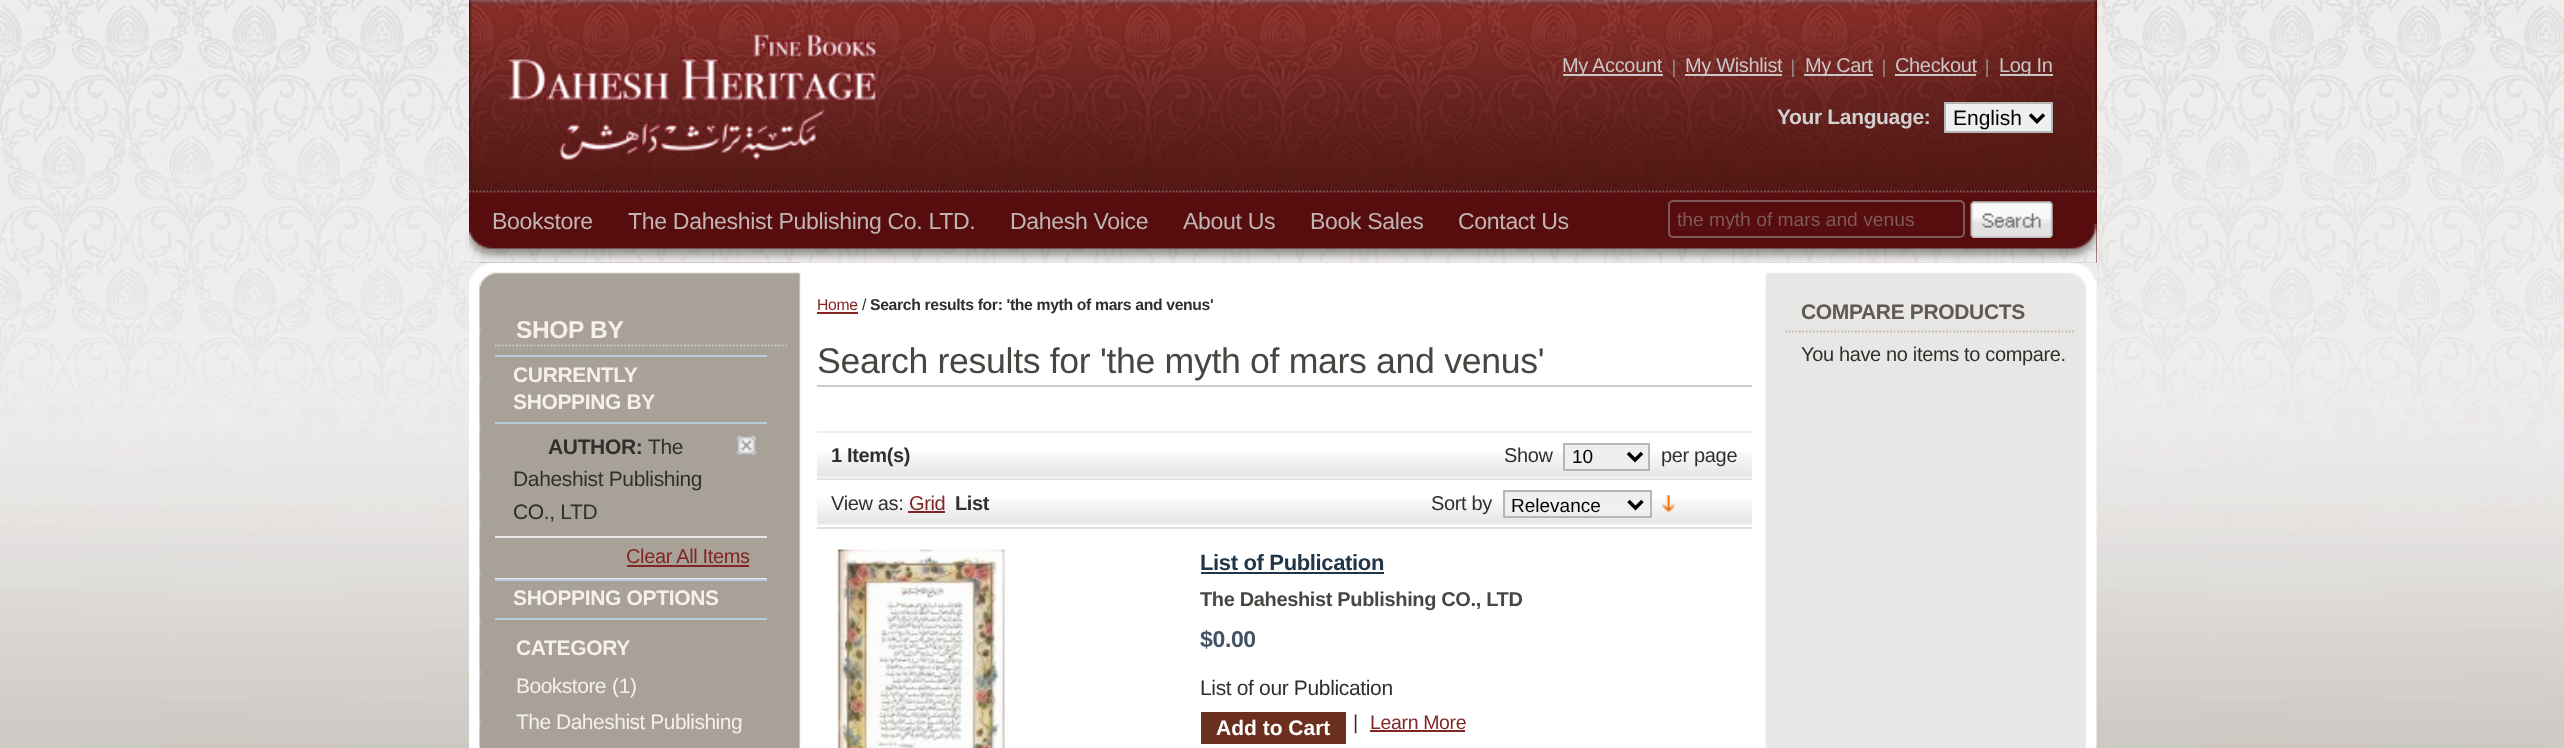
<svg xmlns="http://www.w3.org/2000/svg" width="2564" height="748">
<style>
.a{font:20px Liberation Sans;letter-spacing:-0.35px;fill:#cac6c6}
.b{font:bold 21px Liberation Sans;letter-spacing:-0.35px;fill:#d1d1d1}
.c{font:21px Liberation Sans;fill:#000}
.d{font:23.1px Liberation Sans;letter-spacing:-0.35px;fill:#bfb5b5}
.e{font:19.25px Liberation Sans;fill:#7e5959}
.f{font:bold 24.5px Liberation Sans;letter-spacing:-0.35px;fill:#f7f0e6}
.g{font:bold 21px Liberation Sans;letter-spacing:-0.35px;fill:#f7f0e6}
.h{font:bold 21px Liberation Sans;letter-spacing:-0.35px;fill:#312f2c}
.i{font:21px Liberation Sans;letter-spacing:-0.35px;fill:#312f2c}
.j{font:20px Liberation Sans;letter-spacing:-0.35px;fill:#832525}
.k{font:21px Liberation Sans;letter-spacing:-0.5px;fill:#f7f0e6}
.l{font:21px Liberation Sans;letter-spacing:-0.35px;fill:#f7f0e6}
.m{font:15.75px Liberation Sans;letter-spacing:-0.35px;fill:#832525}
.n{font:15.75px Liberation Sans;letter-spacing:-0.35px;fill:#312f2c}
.o{font:bold 15.75px Liberation Sans;letter-spacing:-0.35px;fill:#312f2c}
.p{font:35.7px Liberation Sans;letter-spacing:-0.35px;fill:#494642}
.q{font:bold 20px Liberation Sans;letter-spacing:-0.35px;fill:#312f2c}
.r{font:20px Liberation Sans;letter-spacing:-0.35px;fill:#312f2c}
.s{font:19px Liberation Sans;fill:#000}
.t{font:bold 22px Liberation Sans;letter-spacing:-0.35px;fill:#203548}
.u{font:bold 20px Liberation Sans;letter-spacing:-0.35px;fill:#494642}
.v{font:bold 23px Liberation Sans;letter-spacing:-0.35px;fill:#425265}
.w{font:bold 21px Liberation Sans;fill:#fff}
.x{font:19.5px Liberation Sans;letter-spacing:-0.35px;fill:#832525}
.y{font:bold 21px Liberation Sans;letter-spacing:-0.35px;fill:#5e5a54}
</style>
<defs>
<clipPath id="clip1"><path d="M1677 208h280v21H1677z"/></clipPath>
</defs>
<rect width="100%" height="100%" fill="#fff"/>
<image href="1.png" x="0" y="0" width="2564" height="748"/>
<path fill="#570d0d" d="M469 0h1628v263H469z"/>
<image href="2.png" x="469" y="224" width="1628" height="39"/>
<image href="3.png" x="469" y="0" width="1628" height="193"/>
<path fill="none" stroke="#7e5959" stroke-width="1.8" stroke-dasharray="1.75 1.75" d="M469 191.5h1627.5"/>
<image href="4.png" x="508" y="34" width="368" height="126"/>
<path fill="#cac6c6" d="M1563 74h100v2H1563z"/>
<image href="5.png" x="1673" y="59" width="2" height="18"/>
<path fill="#cac6c6" d="M1685 74h97v2H1685z"/>
<image href="6.png" x="1792" y="59" width="2" height="18"/>
<path fill="#cac6c6" d="M1804 74h69v2H1804z"/>
<image href="7.png" x="1883" y="59" width="2" height="18"/>
<path fill="#cac6c6" d="M1895 74h81v2H1895z"/>
<image href="8.png" x="1986" y="59" width="2" height="18"/>
<path fill="#cac6c6" d="M2000 74h53v2H2000z"/>
<path fill="#efefef" stroke="#b6b6b6" stroke-width="2" d="M1945 103h107v29H1945z"/>
<path fill="none" stroke="#000" stroke-width="3.5" d="M2030 114.5l7 7l7-7"/>
<rect fill="none" stroke="#7e5959" stroke-width="2" x="1669" y="201" width="295" height="36" rx="4"/>
<image href="9.png" x="1970" y="201" width="83" height="37"/>
<image href="10.png" x="469" y="262" width="1628" height="486"/>
<image href="11.png" x="469" y="262" width="1628" height="25"/>
<path fill="none" stroke="#cec9c1" stroke-width="1.8" stroke-dasharray="1.75 1.75" d="M495 345.5h292.5"/>
<path fill="#b9ccdd" d="M495 355h272v2H495z"/>
<path fill="#b9ccdd" d="M495 422h272v2H495z"/>
<image href="12.png" x="736" y="435" width="20" height="20"/>
<path fill="#e8e8e8" d="M495 536h272v2H495z"/>
<path fill="#e8e8e8" d="M495 578h272v1H495z"/>
<path fill="#832525" d="M627 565h122v2H627z"/>
<path fill="#b9ccdd" d="M495 579h272v2H495z"/>
<path fill="#b9ccdd" d="M495 618h272v2H495z"/>
<path fill="#832525" d="M817 312h41v2H817z"/>
<path fill="#ccc" d="M817 385h935v2H817z"/>
<image href="13.png" x="817" y="452" width="935" height="26"/>
<path fill="#eee" d="M817 431h935v2H817z"/>
<path fill="#efefef" stroke="#b6b6b6" stroke-width="2" d="M1564 444h85v26H1564z"/>
<path fill="none" stroke="#000" stroke-width="3.5" d="M1628 453l7 7l7-7"/>
<image href="14.png" x="817" y="499" width="935" height="26"/>
<path fill="#e2e2e2" d="M817 478h935v2H817z"/>
<path fill="#832525" d="M908 511h37v2H908z"/>
<path fill="#efefef" d="M1505 492h145v18H1505z"/>
<path fill="none" stroke="#b6b6b6" stroke-width="2" d="M1504 491h147v26H1504z"/>
<path fill="none" stroke="#000" stroke-width="3.5" d="M1628.5 501l7 7l7-7"/>
<image href="15.png" x="1662" y="495" width="13" height="18"/>
<path fill="#dfdfdf" d="M817 527h935v2H817z"/>
<image href="16.png" x="835" y="549" width="171" height="199"/>
<path fill="#203548" d="M1201 572h183v2H1201z"/>
<path fill="#6b2f1e" d="M1201 712h145v32H1201z"/>
<path fill="#832525" d="M1370 730h95v2H1370z"/>
<path fill="none" stroke="#c2bcb2" stroke-width="1.8" stroke-dasharray="1.75 1.75" d="M1785 331.5h289"/>
<text class="a" x="1562" y="72">My Account</text>
<text class="a" x="1685" y="72">My Wishlist</text>
<text class="a" x="1805" y="72">My Cart</text>
<text class="a" x="1895" y="72">Checkout</text>
<text class="a" x="1999" y="72">Log In</text>
<text class="b" x="1777" y="124">Your Language:</text>
<text class="c" x="1953" y="125">English</text>
<text class="d" x="492" y="229">Bookstore</text>
<text class="d" x="628" y="229">The Daheshist Publishing Co. LTD.</text>
<text class="d" x="1010" y="229">Dahesh Voice</text>
<text class="d" x="1183" y="229">About Us</text>
<text class="d" x="1310" y="229">Book Sales</text>
<text class="d" x="1458" y="229">Contact Us</text>
<g clip-path="url(#clip1)">
<text class="e" x="1677" y="226">the myth of mars and venus</text>
</g>
<text class="f" x="516" y="338">SHOP BY</text>
<text class="g" x="513" y="382">CURRENTLY</text>
<text class="g" x="513" y="409">SHOPPING BY</text>
<text class="h" x="548" y="454">AUTHOR:</text>
<text class="i" x="648" y="454">The</text>
<text class="i" x="513" y="486">Daheshist Publishing</text>
<text class="i" x="513" y="519">CO., LTD</text>
<text class="j" x="626" y="563">Clear All Items</text>
<text class="g" x="513" y="605">SHOPPING OPTIONS</text>
<text class="g" x="516" y="655">CATEGORY</text>
<text class="k" x="516" y="693">Bookstore</text>
<text class="l" x="612" y="693">(1)</text>
<text class="k" x="516" y="729">The Daheshist Publishing</text>
<text class="m" x="817" y="310">Home</text>
<text class="n" x="862" y="310">/</text>
<text class="o" x="870" y="310">Search results for: 'the myth of mars and venus'</text>
<text class="p" x="817" y="373">Search results for 'the myth of mars and venus'</text>
<text class="q" x="831" y="462">1 Item(s)</text>
<text class="r" x="1504" y="462">Show</text>
<text class="s" x="1572" y="463">10</text>
<text class="r" x="1661" y="462">per page</text>
<text class="r" x="831" y="510">View as:</text>
<text class="j" x="909" y="510">Grid</text>
<text class="q" x="955" y="510">List</text>
<text class="r" x="1431" y="510">Sort by</text>
<text class="s" x="1511" y="512">Relevance</text>
<text class="t" x="1200" y="570">List of Publication</text>
<text class="u" x="1200" y="606">The Daheshist Publishing CO., LTD</text>
<text class="v" x="1200" y="647">$0.00</text>
<text class="i" x="1200" y="695">List of our Publication</text>
<text class="w" x="1216" y="735">Add to Cart</text>
<text class="r" x="1353" y="729">|</text>
<text class="x" x="1370" y="729">Learn More</text>
<text class="y" x="1801" y="319">COMPARE PRODUCTS</text>
<text class="r" x="1801" y="361">You have no items to compare.</text>
</svg>
